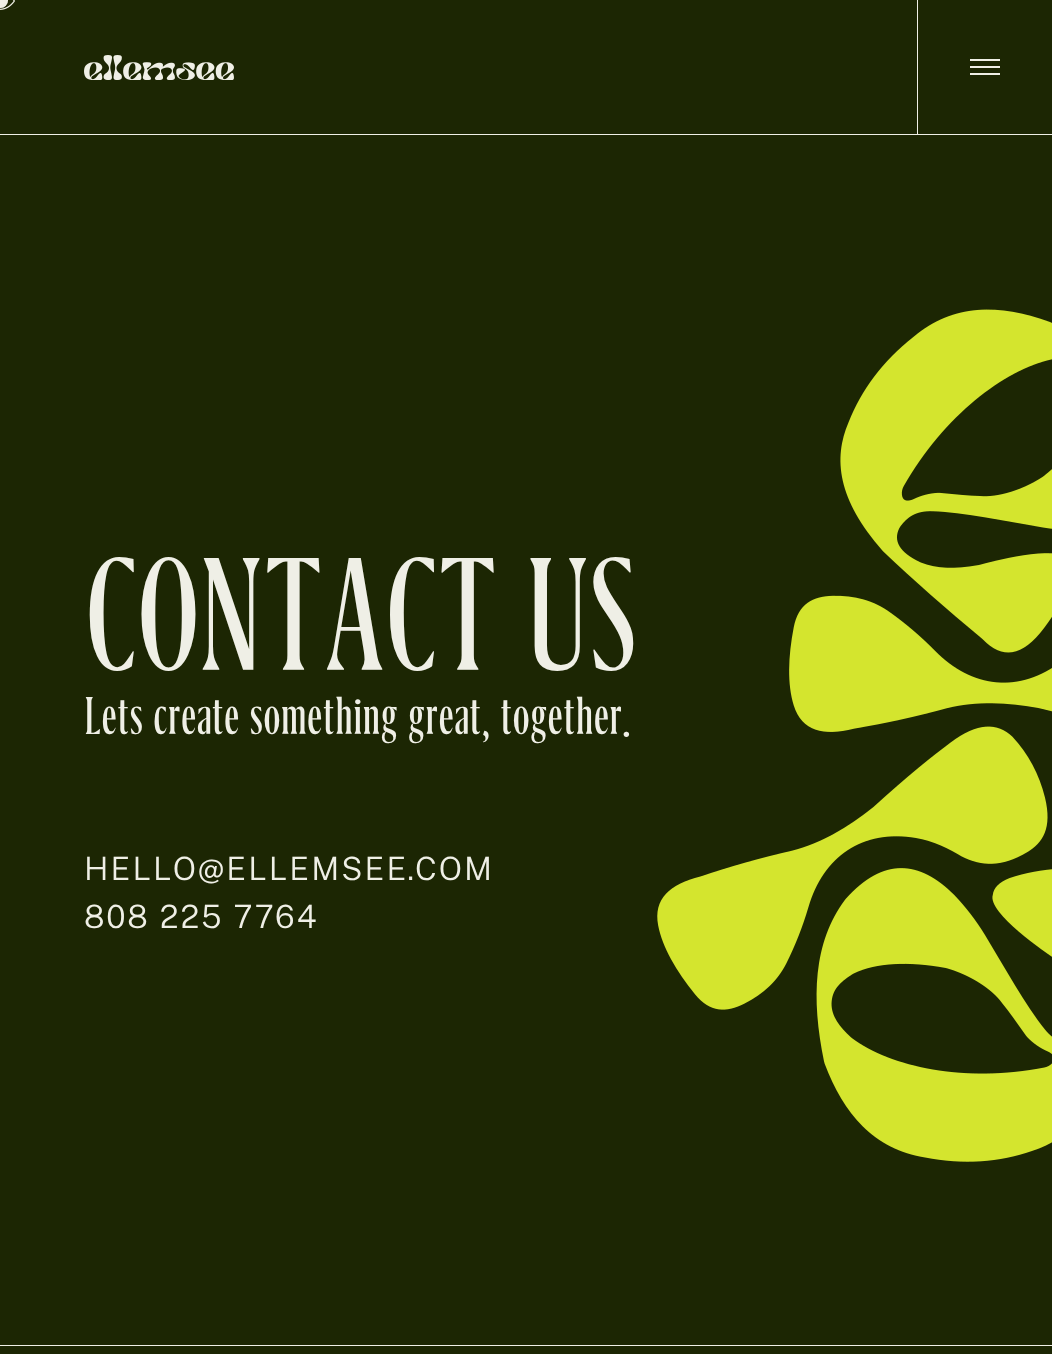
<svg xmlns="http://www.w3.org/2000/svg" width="1052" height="1354">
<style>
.a{font:160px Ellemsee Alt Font;letter-spacing:-4px;fill:#efefe6}
.b{font:52.75px Ellemsee Alt Font;letter-spacing:-1px;fill:#efefe6}
.c{font:300 32px Public Sans;letter-spacing:2px;fill:#efefe6}
</style>
<rect width="100%" height="100%" fill="#1c2603"/>
<image href="1.png" x="0" y="0" width="15" height="10"/>
<circle fill="#efefe6" cx="0.5" cy="0.5" r="7.5"/>
<circle fill="none" stroke="#efefe680" stroke-width="2" cx="0.5" cy="0.5" r="6.5"/>
<path fill="#efefe6" d="M0 134h1052v1H0z"/>
<image href="2.png" x="84" y="55" width="150" height="25"/>
<path fill="#efefe6" d="M917 0h1v134H917z"/>
<path fill="#efefe6" d="M970 59h30v2H970z"/>
<path fill="#efefe6" d="M970 66h30v2H970z"/>
<path fill="#efefe6" d="M970 73h30v2H970z"/>
<image href="3.png" x="657" y="309" width="395" height="853"/>
<path fill="#efefe6" d="M0 1345h1052v1H0z"/>
<text class="a" x="84" y="670">CONTACT US</text>
<text class="b" x="84" y="734">Lets create something great, together.</text>
<text class="c" x="84" y="880">HELLO@ELLEMSEE.COM</text>
<text class="c" x="84" y="928">808 225 7764</text>
</svg>
